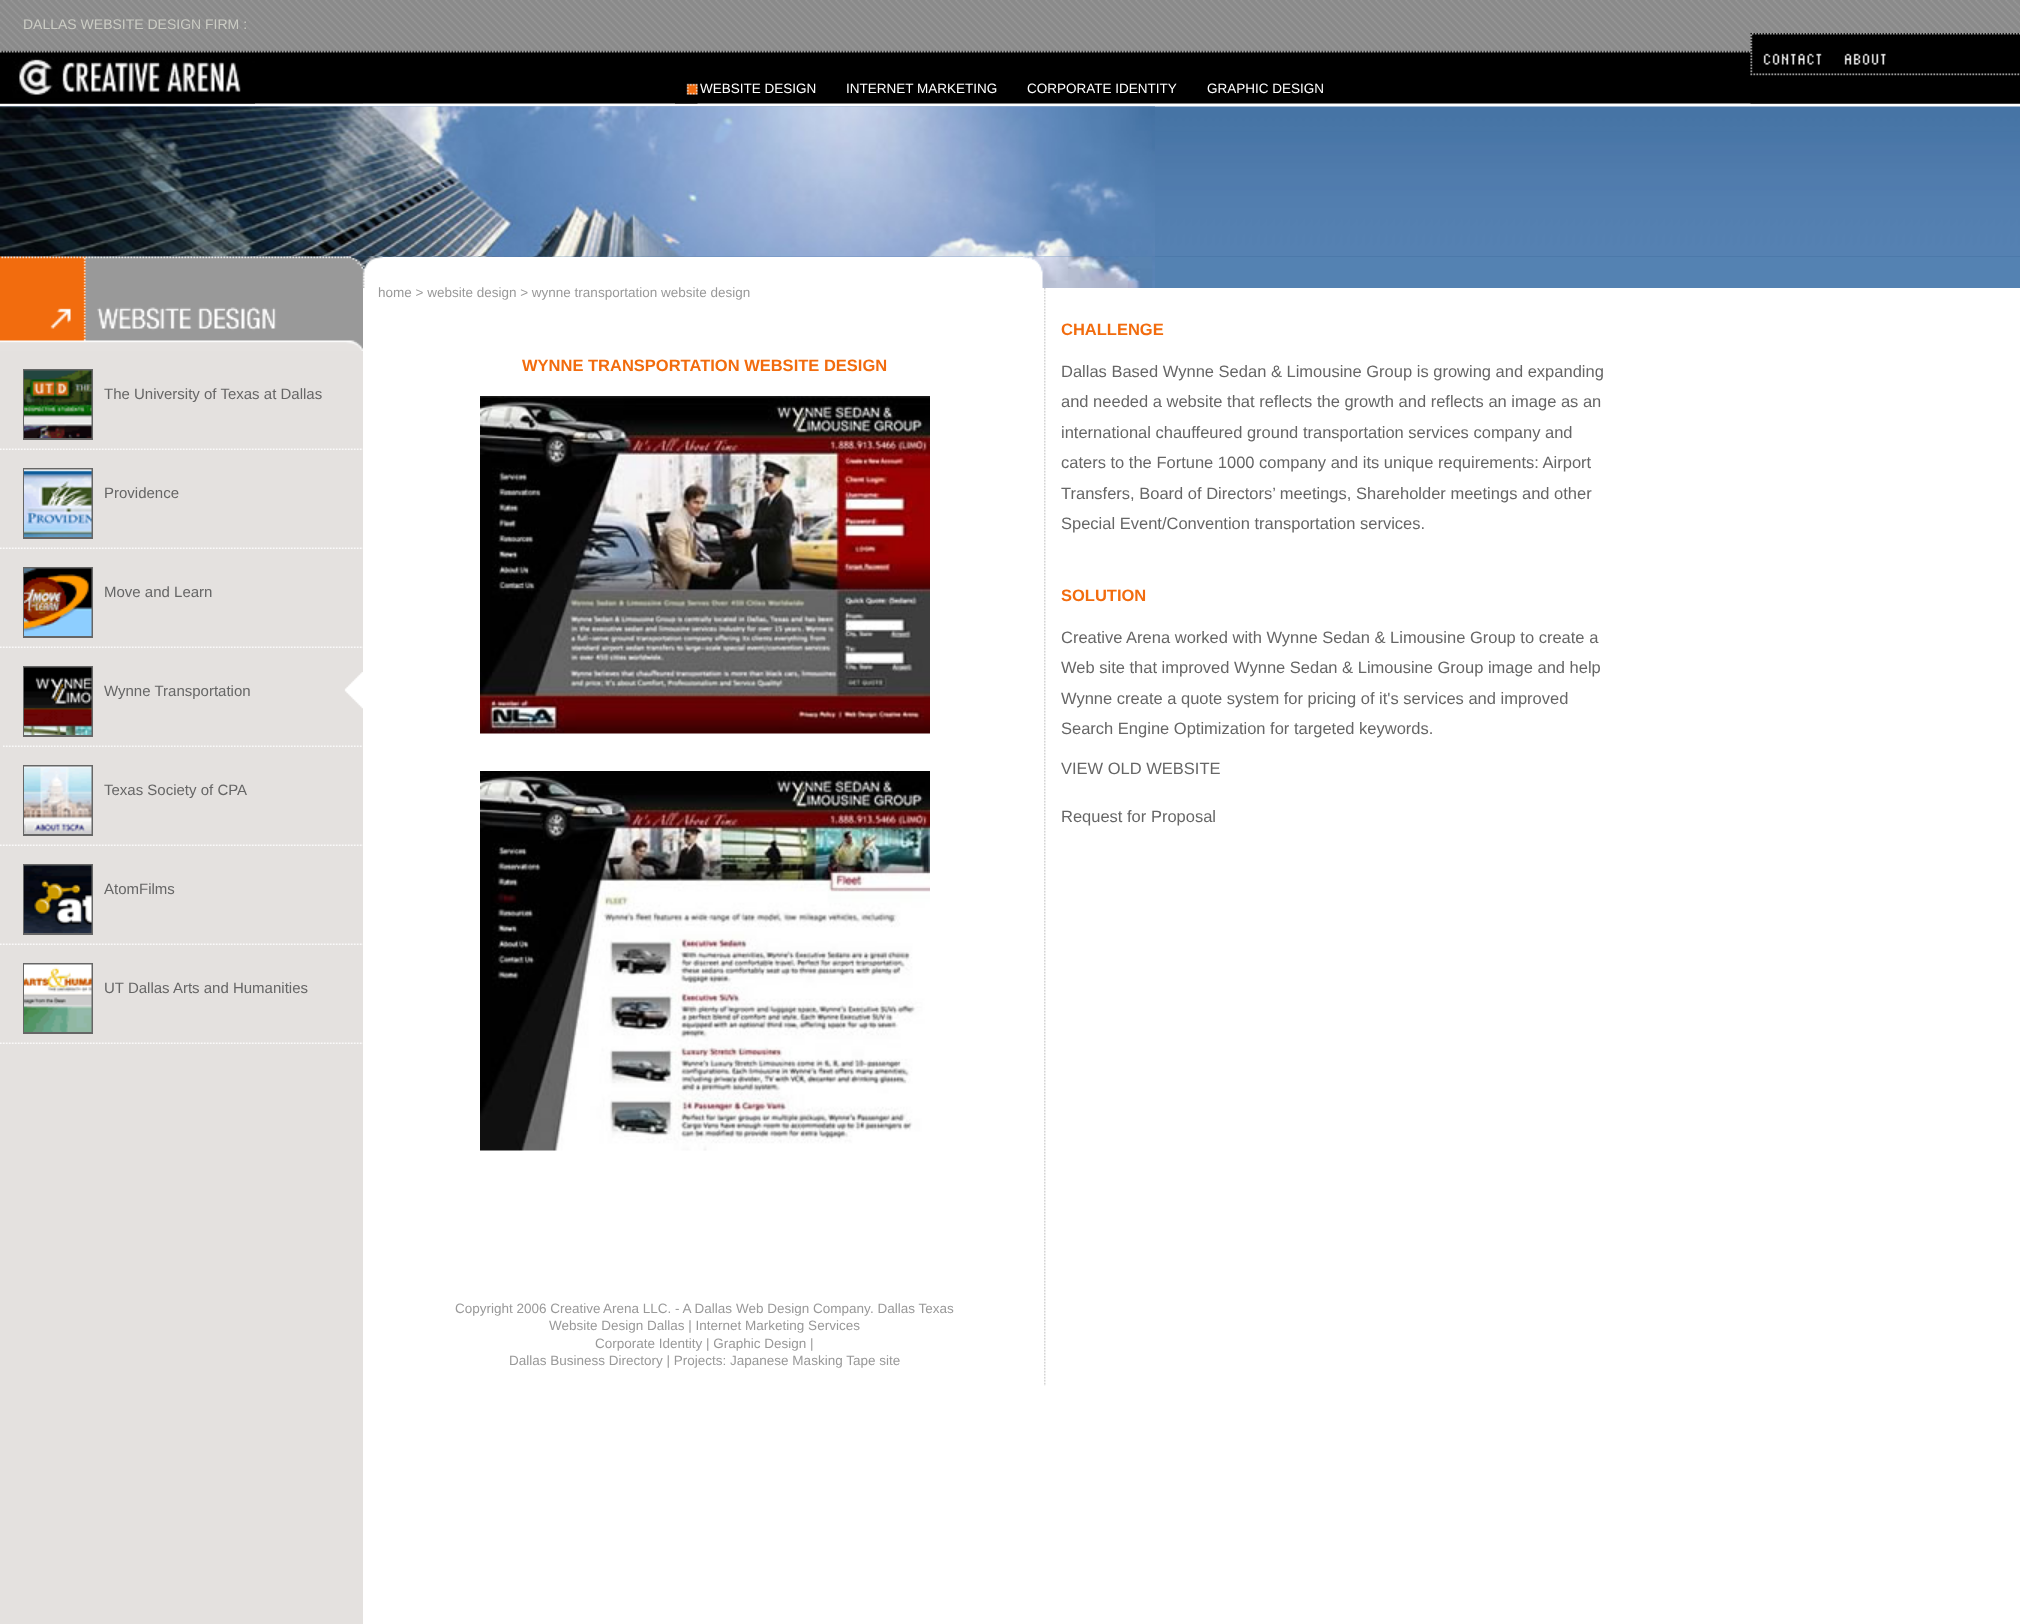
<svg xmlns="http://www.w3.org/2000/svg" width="2020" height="1624">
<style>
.a{font:14px Liberation Sans;fill:#cbccc4}
.b{font:13.5px Liberation Sans;fill:#fff}
.c{font:15px Liberation Sans;fill:#666}
.d{font:13.5px Liberation Sans;fill:#999}
.e{font:bold 16.5px Liberation Sans;fill:#f26c0e}
.f{font:16.5px Liberation Sans;fill:#666}
</style>
<rect width="100%" height="100%" fill="#fff"/>
<path fill="#e4e1df" d="M0 103h363v1521H0z"/>
<image href="1.png" x="0" y="0" width="2020" height="104"/>
<path fill="#fff" d="M0 104h363v3H0z"/>
<image href="2.png" x="0" y="57" width="255" height="47"/>
<image href="3.png" x="675" y="83" width="23" height="21"/>
<image href="4.png" x="1750" y="33" width="270" height="71"/>
<path fill="#4370a2" d="M0 256h2020v1H0z"/>
<image href="5.png" x="0" y="106" width="2020" height="151"/>
<image href="6.png" x="0" y="106" width="1155" height="151"/>
<path fill="#5482b2" d="M1155 257h865v31H1155z"/>
<image href="7.png" x="0" y="256" width="1155" height="32"/>
<path fill="#fff" d="M382 257h641v31H382z"/>
<image href="8.png" x="0" y="256" width="383" height="32"/>
<image href="9.png" x="1023" y="256" width="20" height="32"/>
<image href="10.png" x="0" y="288" width="363" height="63"/>
<image href="11.png" x="0" y="448" width="363" height="2"/>
<path fill="none" stroke="#666" stroke-width="2" d="M24 370h68v69H24z"/>
<image href="12.png" x="24" y="370" width="68" height="68"/>
<image href="11.png" x="0" y="547" width="363" height="2"/>
<path fill="none" stroke="#666" stroke-width="2" d="M24 469h68v69H24z"/>
<image href="13.png" x="24" y="469" width="68" height="68"/>
<image href="11.png" x="0" y="646" width="363" height="2"/>
<path fill="none" stroke="#666" stroke-width="2" d="M24 568h68v69H24z"/>
<image href="14.png" x="24" y="568" width="68" height="68"/>
<image href="15.png" x="3" y="672" width="360" height="75"/>
<path fill="none" stroke="#666" stroke-width="2" d="M24 667h68v69H24z"/>
<image href="16.png" x="24" y="667" width="68" height="68"/>
<image href="11.png" x="0" y="844" width="363" height="2"/>
<path fill="none" stroke="#666" stroke-width="2" d="M24 766h68v69H24z"/>
<image href="17.png" x="24" y="766" width="68" height="68"/>
<image href="11.png" x="0" y="943" width="363" height="2"/>
<path fill="none" stroke="#666" stroke-width="2" d="M24 865h68v69H24z"/>
<image href="18.png" x="24" y="865" width="68" height="68"/>
<image href="11.png" x="0" y="1042" width="363" height="2"/>
<path fill="none" stroke="#666" stroke-width="2" d="M24 964h68v69H24z"/>
<image href="19.png" x="24" y="964" width="68" height="68"/>
<image href="20.png" x="1044" y="288" width="2" height="1098"/>
<image href="21.png" x="480" y="396" width="450" height="338"/>
<image href="22.png" x="480" y="771" width="450" height="380"/>
<text class="a" x="23" y="29">DALLAS WEBSITE DESIGN FIRM :</text>
<text class="b" x="700" y="93">WEBSITE DESIGN</text>
<text class="b" x="846" y="93">INTERNET MARKETING</text>
<text class="b" x="1027" y="93">CORPORATE IDENTITY</text>
<text class="b" x="1207" y="93">GRAPHIC DESIGN</text>
<text class="c" x="104" y="399">The University of Texas at Dallas</text>
<text class="c" x="104" y="498">Providence</text>
<text class="c" x="104" y="597">Move and Learn</text>
<text class="c" x="104" y="696">Wynne Transportation</text>
<text class="c" x="104" y="795">Texas Society of CPA</text>
<text class="c" x="104" y="894">AtomFilms</text>
<text class="c" x="104" y="993">UT Dallas Arts and Humanities</text>
<text class="d" x="378" y="297">home &gt; website design &gt; wynne transportation website design</text>
<text class="e" x="522" y="371">WYNNE TRANSPORTATION WEBSITE DESIGN</text>
<text class="d" x="455" y="1313">Copyright 2006 Creative</text>
<text class="d" x="603" y="1313">Arena LLC. - A Dallas</text>
<text class="d" x="736" y="1313">Web Design Company</text>
<text class="d" x="870" y="1313">. Dallas Texas</text>
<text class="d" x="549" y="1330">Website Design Dallas | Internet Marketing Services</text>
<text class="d" x="595" y="1348">Corporate Identity | Graphic Design |</text>
<text class="d" x="509" y="1365">Dallas Business Directory | Projects: Japanese Masking Tape site</text>
<text class="e" x="1061" y="335">CHALLENGE</text>
<text class="f" x="1061" y="377">Dallas Based Wynne Sedan &amp; Limousine Group is growing and expanding</text>
<text class="f" x="1061" y="407">and needed a website that reflects the growth and reflects an image as an</text>
<text class="f" x="1061" y="438">international chauffeured ground transportation services company and</text>
<text class="f" x="1061" y="468">caters to the Fortune 1000 company and its unique requirements: Airport</text>
<text class="f" x="1061" y="499">Transfers, Board of Directors’ meetings, Shareholder meetings and other</text>
<text class="f" x="1061" y="529">Special Event/Convention transportation services.</text>
<text class="e" x="1061" y="601">SOLUTION</text>
<text class="f" x="1061" y="643">Creative Arena worked with Wynne Sedan &amp; Limousine Group to create a</text>
<text class="f" x="1061" y="673">Web site that improved Wynne Sedan &amp; Limousine Group image and help</text>
<text class="f" x="1061" y="704">Wynne create a quote system for pricing of it's services and improved</text>
<text class="f" x="1061" y="734">Search Engine Optimization for targeted keywords.</text>
<text class="f" x="1061" y="774">VIEW OLD WEBSITE</text>
<text class="f" x="1061" y="822">Request for Proposal</text>
</svg>
